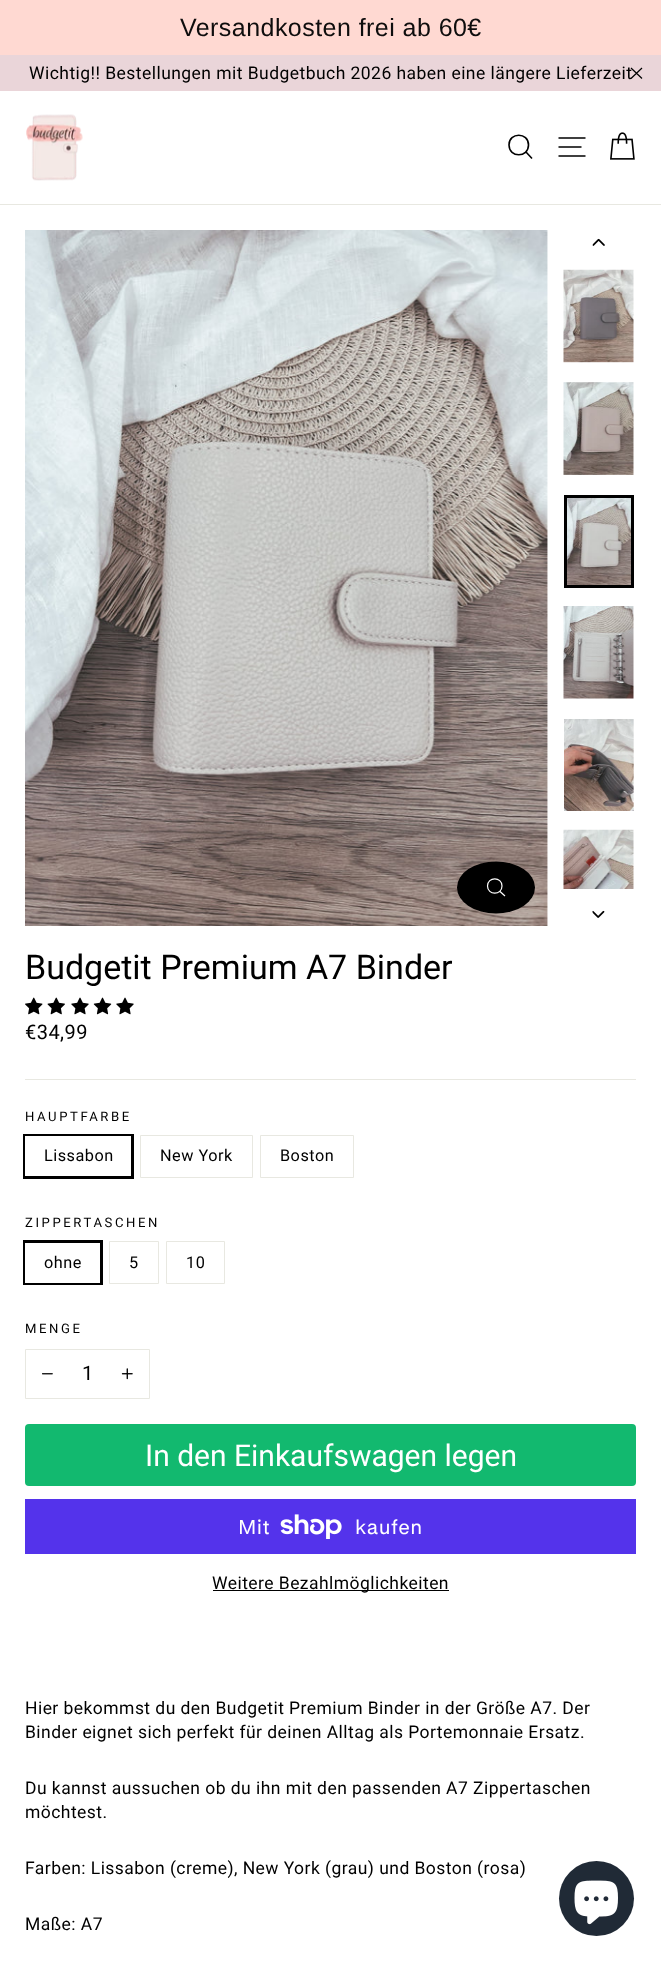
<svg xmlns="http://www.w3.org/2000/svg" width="661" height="1962">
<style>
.a{font:25px Liberation Sans;letter-spacing:0.45px;fill:#0e0d0d}
.b{font:17.5px Roboto;letter-spacing:0.45px;fill:#000}
.c{font:34px Roboto;fill:#000}
.d{font:20px Roboto;letter-spacing:0.45px;fill:#000}
.e{font:13.1px Roboto;letter-spacing:2.6px;fill:#000}
.f{font:16.25px Roboto;letter-spacing:0.5px;fill:#000}
.g{font:20px Roboto;fill:#000}
.h{font:30px Roboto;fill:#fff}
.i{font:20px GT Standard;letter-spacing:0.45px;fill:#fff}
</style>
<rect width="100%" height="100%" fill="#fff"/>
<path fill="#ffd9d2" d="M0 0h661v55H0z"/>
<path fill="#ead5d9" d="M0 55h661v36H0z"/>
<path fill="none" stroke="#000" stroke-width="1.2" d="M631 68l11 10.5m0-10.5l-11 10.5"/>
<path fill="#e8e8e1" d="M0 204h661v1H0z"/>
<image href="1.png" x="26" y="114" width="57" height="67"/>
<path fill="none" stroke="#000" stroke-width="1.6" d="M528.5 145c0 13-19.5 13-19.5 0c0-13 19.5-13 19.5 0zm3.5 13.5l-6-6.5"/>
<path fill="none" stroke="#000" stroke-width="1.6" d="M558.5 138h27m-27 9h23m-23 9h27"/>
<image href="2.png" x="610" y="132" width="25" height="28"/>
<image href="3.png" x="25" y="230" width="523" height="696"/>
<ellipse fill="#000" cx="496" cy="887.5" rx="39" ry="26"/>
<path fill="none" stroke="#fff" stroke-width="1.2" d="M502 886c0 9.5-14.5 9.5-14.5 0c0-9.5 14.5-9.5 14.5 0zm3 10l-5-4.5"/>
<image href="4.png" x="592" y="238" width="13" height="8"/>
<image href="5.png" x="563" y="269" width="71" height="94"/>
<image href="6.png" x="563" y="382" width="71" height="93"/>
<image href="7.png" x="567" y="498" width="64" height="87"/>
<path fill="none" stroke="#000" stroke-width="3" d="M565.5 496.5h67v90H565.5z"/>
<image href="8.png" x="563" y="606" width="71" height="93"/>
<image href="9.png" x="564" y="719" width="70" height="92"/>
<image href="10.png" x="563" y="829" width="71" height="60"/>
<image href="11.png" x="592" y="910" width="13" height="8"/>
<image href="12.png" x="25" y="997" width="18" height="18"/>
<image href="13.png" x="47" y="997" width="18" height="18"/>
<image href="14.png" x="71" y="997" width="18" height="18"/>
<image href="15.png" x="93" y="997" width="19" height="18"/>
<image href="14.png" x="116" y="997" width="18" height="18"/>
<path fill="#e8e8e1" d="M25 1079h611v1H25z"/>
<path fill="none" stroke="#000" stroke-width="3" d="M24.5 1135.5h108v42H24.5z"/>
<path fill="#fff" d="M25 1136h106v40H25z"/>
<path fill="none" stroke="#e8e8e1" d="M140.5 1135.5h112v42H140.5z"/>
<path fill="none" stroke="#e8e8e1" d="M260.5 1135.5h93v42H260.5z"/>
<path fill="none" stroke="#000" stroke-width="3" d="M24.5 1241.5h77v42H24.5z"/>
<path fill="#fff" d="M25 1243h75v40H25z"/>
<path fill="none" stroke="#e8e8e1" d="M109.5 1241.5h49v42H109.5z"/>
<path fill="none" stroke="#e8e8e1" d="M166.5 1241.5h58v42H166.5z"/>
<path fill="none" stroke="#e8e8e1" d="M25.5 1349.5h124v49H25.5z"/>
<image href="16.png" x="42" y="1373" width="11" height="2"/>
<image href="17.png" x="121" y="1368" width="12" height="12"/>
<rect fill="#12b96f" x="25" y="1424" width="611" height="62" rx="4"/>
<path fill="#5433eb" d="M25 1499h611v55H25z"/>
<image href="18.png" x="280" y="1514" width="62" height="25"/>
<path fill="#000" d="M213 1590h236v1H213z"/>
<circle fill="#202a36" cx="596.5" cy="1898.5" r="37.5"/>
<image href="19.png" x="574" y="1880" width="44" height="45"/>
<text class="a" x="180" y="36">Versandkosten frei ab 60€</text>
<text class="b" x="29" y="79">Wichtig!! Bestellungen mit Budgetbuch 2026 haben eine längere Lieferzeit</text>
<text class="c" x="25" y="979">Budgetit Premium A7 Binder</text>
<text class="d" x="25" y="1039">€34,99</text>
<text class="e" x="25" y="1121">HAUPTFARBE</text>
<text class="f" x="44" y="1161">Lissabon</text>
<text class="f" x="160" y="1161">New York</text>
<text class="f" x="280" y="1161">Boston</text>
<text class="e" x="25" y="1227">ZIPPERTASCHEN</text>
<text class="f" x="44" y="1268">ohne</text>
<text class="f" x="129" y="1268">5</text>
<text class="f" x="186" y="1268">10</text>
<text class="e" x="25" y="1333">MENGE</text>
<text class="g" x="82" y="1380">1</text>
<text class="h" x="145" y="1466">In den Einkaufswagen legen</text>
<text class="i" x="238" y="1534">Mit</text>
<text class="i" x="355" y="1534">kaufen</text>
<text class="b" x="212" y="1589">Weitere Bezahlmöglichkeiten</text>
<text class="b" x="25" y="1714">Hier bekommst du den Budgetit Premium Binder in der Größe A7. Der</text>
<text class="b" x="25" y="1738">Binder eignet sich perfekt für deinen Alltag als Portemonnaie Ersatz.</text>
<text class="b" x="25" y="1794">Du kannst aussuchen ob du ihn mit den passenden A7 Zippertaschen</text>
<text class="b" x="25" y="1818">möchtest.</text>
<text class="b" x="25" y="1874">Farben: Lissabon (creme), New York (grau) und Boston (rosa)</text>
<text class="b" x="25" y="1930">Maße: A7</text>
</svg>
